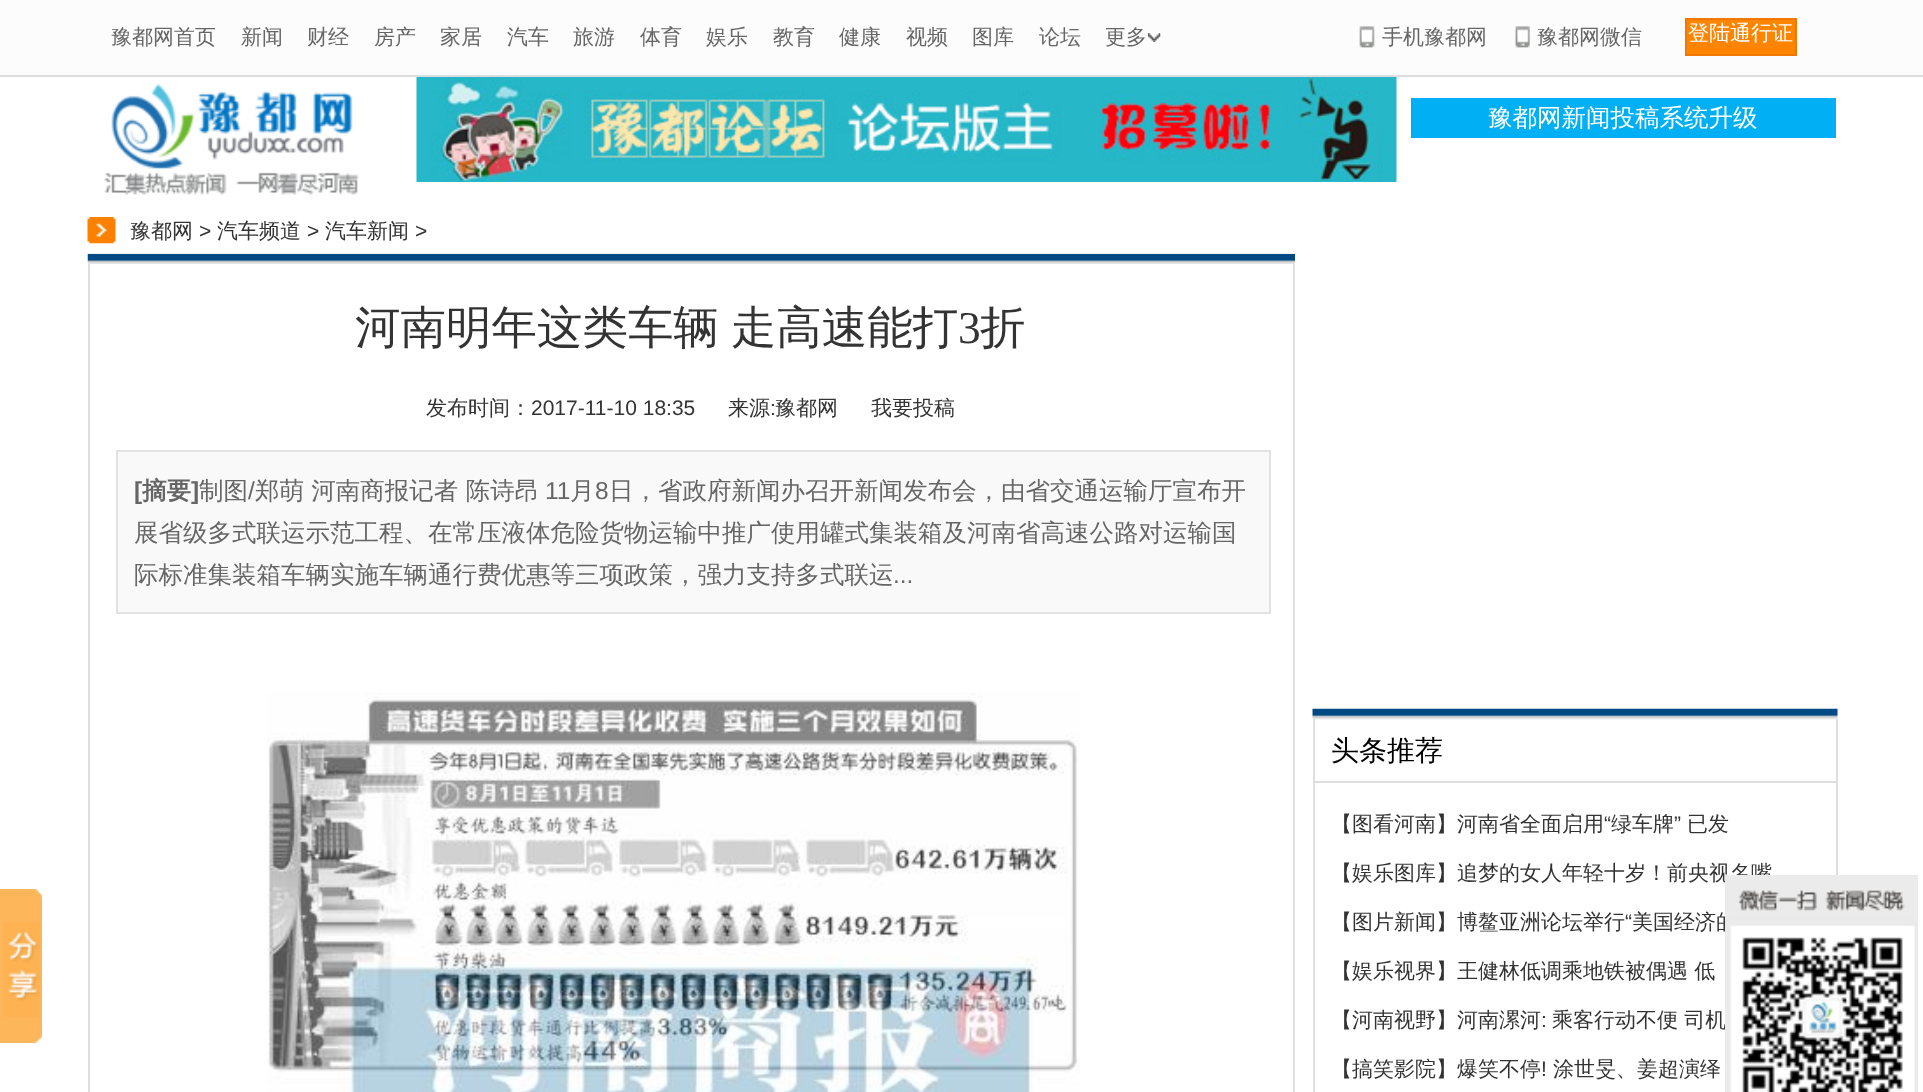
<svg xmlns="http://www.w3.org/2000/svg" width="1923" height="1092">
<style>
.a{font:500 21px WenQuanYi Zen Hei;fill:#666}
.b{font:500 21px WenQuanYi Zen Hei;fill:#fff}
.c{font:500 24.5px WenQuanYi Zen Hei;fill:#fff}
.d{font:500 21px WenQuanYi Zen Hei;fill:#333}
.e{font:21px Liberation Sans;fill:#333}
.f{font:500 45.5px WenQuanYi Zen Hei;fill:#333}
.g{font:45.5px Liberation Serif;fill:#333}
.h{font:bold 24.5px Liberation Sans;fill:#666}
.i{font:bold 24.5px WenQuanYi Zen Hei;fill:#666}
.j{font:500 24.5px WenQuanYi Zen Hei;fill:#666}
.k{font:24.5px Liberation Sans;fill:#666}
.l{font:500 28px WenQuanYi Zen Hei;fill:#000}
</style>
<rect width="100%" height="100%" fill="#fff"/>
<path fill="#fcfcfc" d="M0 0h1923v75H0z"/>
<path fill="#ddd" d="M0 75h1923v2H0z"/>
<image href="1.png" x="1148" y="33" width="13" height="9"/>
<image href="2.png" x="1359" y="26" width="16" height="22"/>
<image href="3.png" x="1515" y="26" width="15" height="22"/>
<path fill="#ff8500" stroke="#f27805" stroke-width="2" d="M1686 19h110v36H1686z"/>
<image href="4.png" x="104" y="83" width="255" height="112"/>
<image href="5.png" x="416" y="77" width="981" height="105"/>
<path fill="#01aff4" d="M1411 98h425v40H1411z"/>
<image href="6.png" x="87" y="217" width="29" height="27"/>
<image href="7.png" x="0" y="889" width="42" height="154"/>
<image href="8.png" x="87" y="253" width="1208" height="12"/>
<path fill="#fff" d="M90 264h1203v1H90z"/>
<path fill="#dedede" d="M1293 264h2v828H1293z"/>
<path fill="#dedede" d="M88 264h2v828H88z"/>
<path fill="#f9f9f9" stroke="#e3e1e1" stroke-width="2" d="M117 451h1153v162H117z"/>
<image href="9.png" x="267" y="692" width="813" height="400"/>
<path fill="#dedede" d="M1836 719h2v156H1836z"/>
<path fill="#dedede" d="M1313 719h2v373H1313z"/>
<image href="10.png" x="1312" y="708" width="526" height="12"/>
<path fill="#dedede" d="M1314 781h522v2H1314z"/>
<text class="a" x="111" y="44">豫都网首页</text>
<text class="a" x="241" y="44">新闻</text>
<text class="a" x="307" y="44">财经</text>
<text class="a" x="374" y="44">房产</text>
<text class="a" x="440" y="44">家居</text>
<text class="a" x="507" y="44">汽车</text>
<text class="a" x="573" y="44">旅游</text>
<text class="a" x="640" y="44">体育</text>
<text class="a" x="706" y="44">娱乐</text>
<text class="a" x="773" y="44">教育</text>
<text class="a" x="839" y="44">健康</text>
<text class="a" x="906" y="44">视频</text>
<text class="a" x="972" y="44">图库</text>
<text class="a" x="1039" y="44">论坛</text>
<text class="a" x="1105" y="44">更多</text>
<text class="a" x="1382" y="44">手机豫都网</text>
<text class="a" x="1537" y="44">豫都网微信</text>
<text class="b" x="1688" y="40">登陆通行证</text>
<text class="c" x="1488" y="126">豫都网新闻投稿系统升级</text>
<text class="d" x="130" y="238">豫都网</text>
<text class="e" x="199" y="238">&gt;</text>
<text class="d" x="217" y="238">汽车频道</text>
<text class="e" x="307" y="238">&gt;</text>
<text class="d" x="325" y="238">汽车新闻</text>
<text class="e" x="415" y="238">&gt;</text>
<text class="f" x="355" y="343" word-spacing="-2">河南明年这类车辆 走高速能打</text>
<text class="g" x="958" y="343">3</text>
<text class="f" x="980" y="343">折</text>
<text class="d" x="426" y="415">发布时间：</text>
<text class="e" x="531" y="415">2017-11-10 18:35</text>
<text class="d" x="728" y="415">来源</text>
<text class="e" x="770" y="415">:</text>
<text class="d" x="775" y="415">豫都网</text>
<text class="d" x="871" y="415">我要投稿</text>
<text class="h" x="134" y="499">[</text>
<text class="i" x="142" y="499">摘要</text>
<text class="h" x="191" y="499">]</text>
<text class="j" x="199" y="499">制图</text>
<text class="k" x="248" y="499">/</text>
<text class="j" x="255" y="499">郑萌 河南商报记者 陈诗昂</text>
<text class="k" x="545" y="499">11</text>
<text class="j" x="570" y="499">月</text>
<text class="k" x="595" y="499">8</text>
<text class="j" x="609" y="499">日，省政府新闻办召开新闻发布会，由省交通运输厅宣布开</text>
<text class="j" x="134" y="541">展省级多式联运示范工程、在常压液体危险货物运输中推广使用罐式集装箱及河南省高速公路对运输国</text>
<text class="j" x="134" y="583">际标准集装箱车辆实施车辆通行费优惠等三项政策，强力支持多式联运</text>
<text class="k" x="893" y="583">...</text>
<text class="l" x="1331" y="760">头条推荐</text>
<text class="d" x="1331" y="831">【图看河南】河南省全面启用</text>
<text class="e" x="1604" y="831">“</text>
<text class="d" x="1611" y="831">绿车牌</text>
<text class="e" x="1674" y="831">”</text>
<text class="d" x="1687" y="831">已发</text>
<text class="d" x="1331" y="880">【娱乐图库】追梦的女人年轻十岁！前央视名嘴</text>
<text class="d" x="1331" y="929">【图片新闻】博鳌亚洲论坛举行</text>
<text class="e" x="1625" y="929">“</text>
<text class="d" x="1632" y="929">美国经济的</text>
<text class="d" x="1331" y="978">【娱乐视界】</text>
<text class="d" x="1457" y="978">王健林低调乘地铁被偶遇 低</text>
<text class="d" x="1331" y="1027">【河南视野】河南漯河</text>
<text class="e" x="1541" y="1027">:</text>
<text class="d" x="1552" y="1027">乘客行动不便 司机</text>
<text class="d" x="1331" y="1076">【搞笑影院】爆笑不停</text>
<text class="e" x="1541" y="1076">!</text>
<text class="d" x="1553" y="1076">涂世旻、姜超演绎</text>
<image href="11.png" x="1725" y="875" width="193" height="217"/>
</svg>
